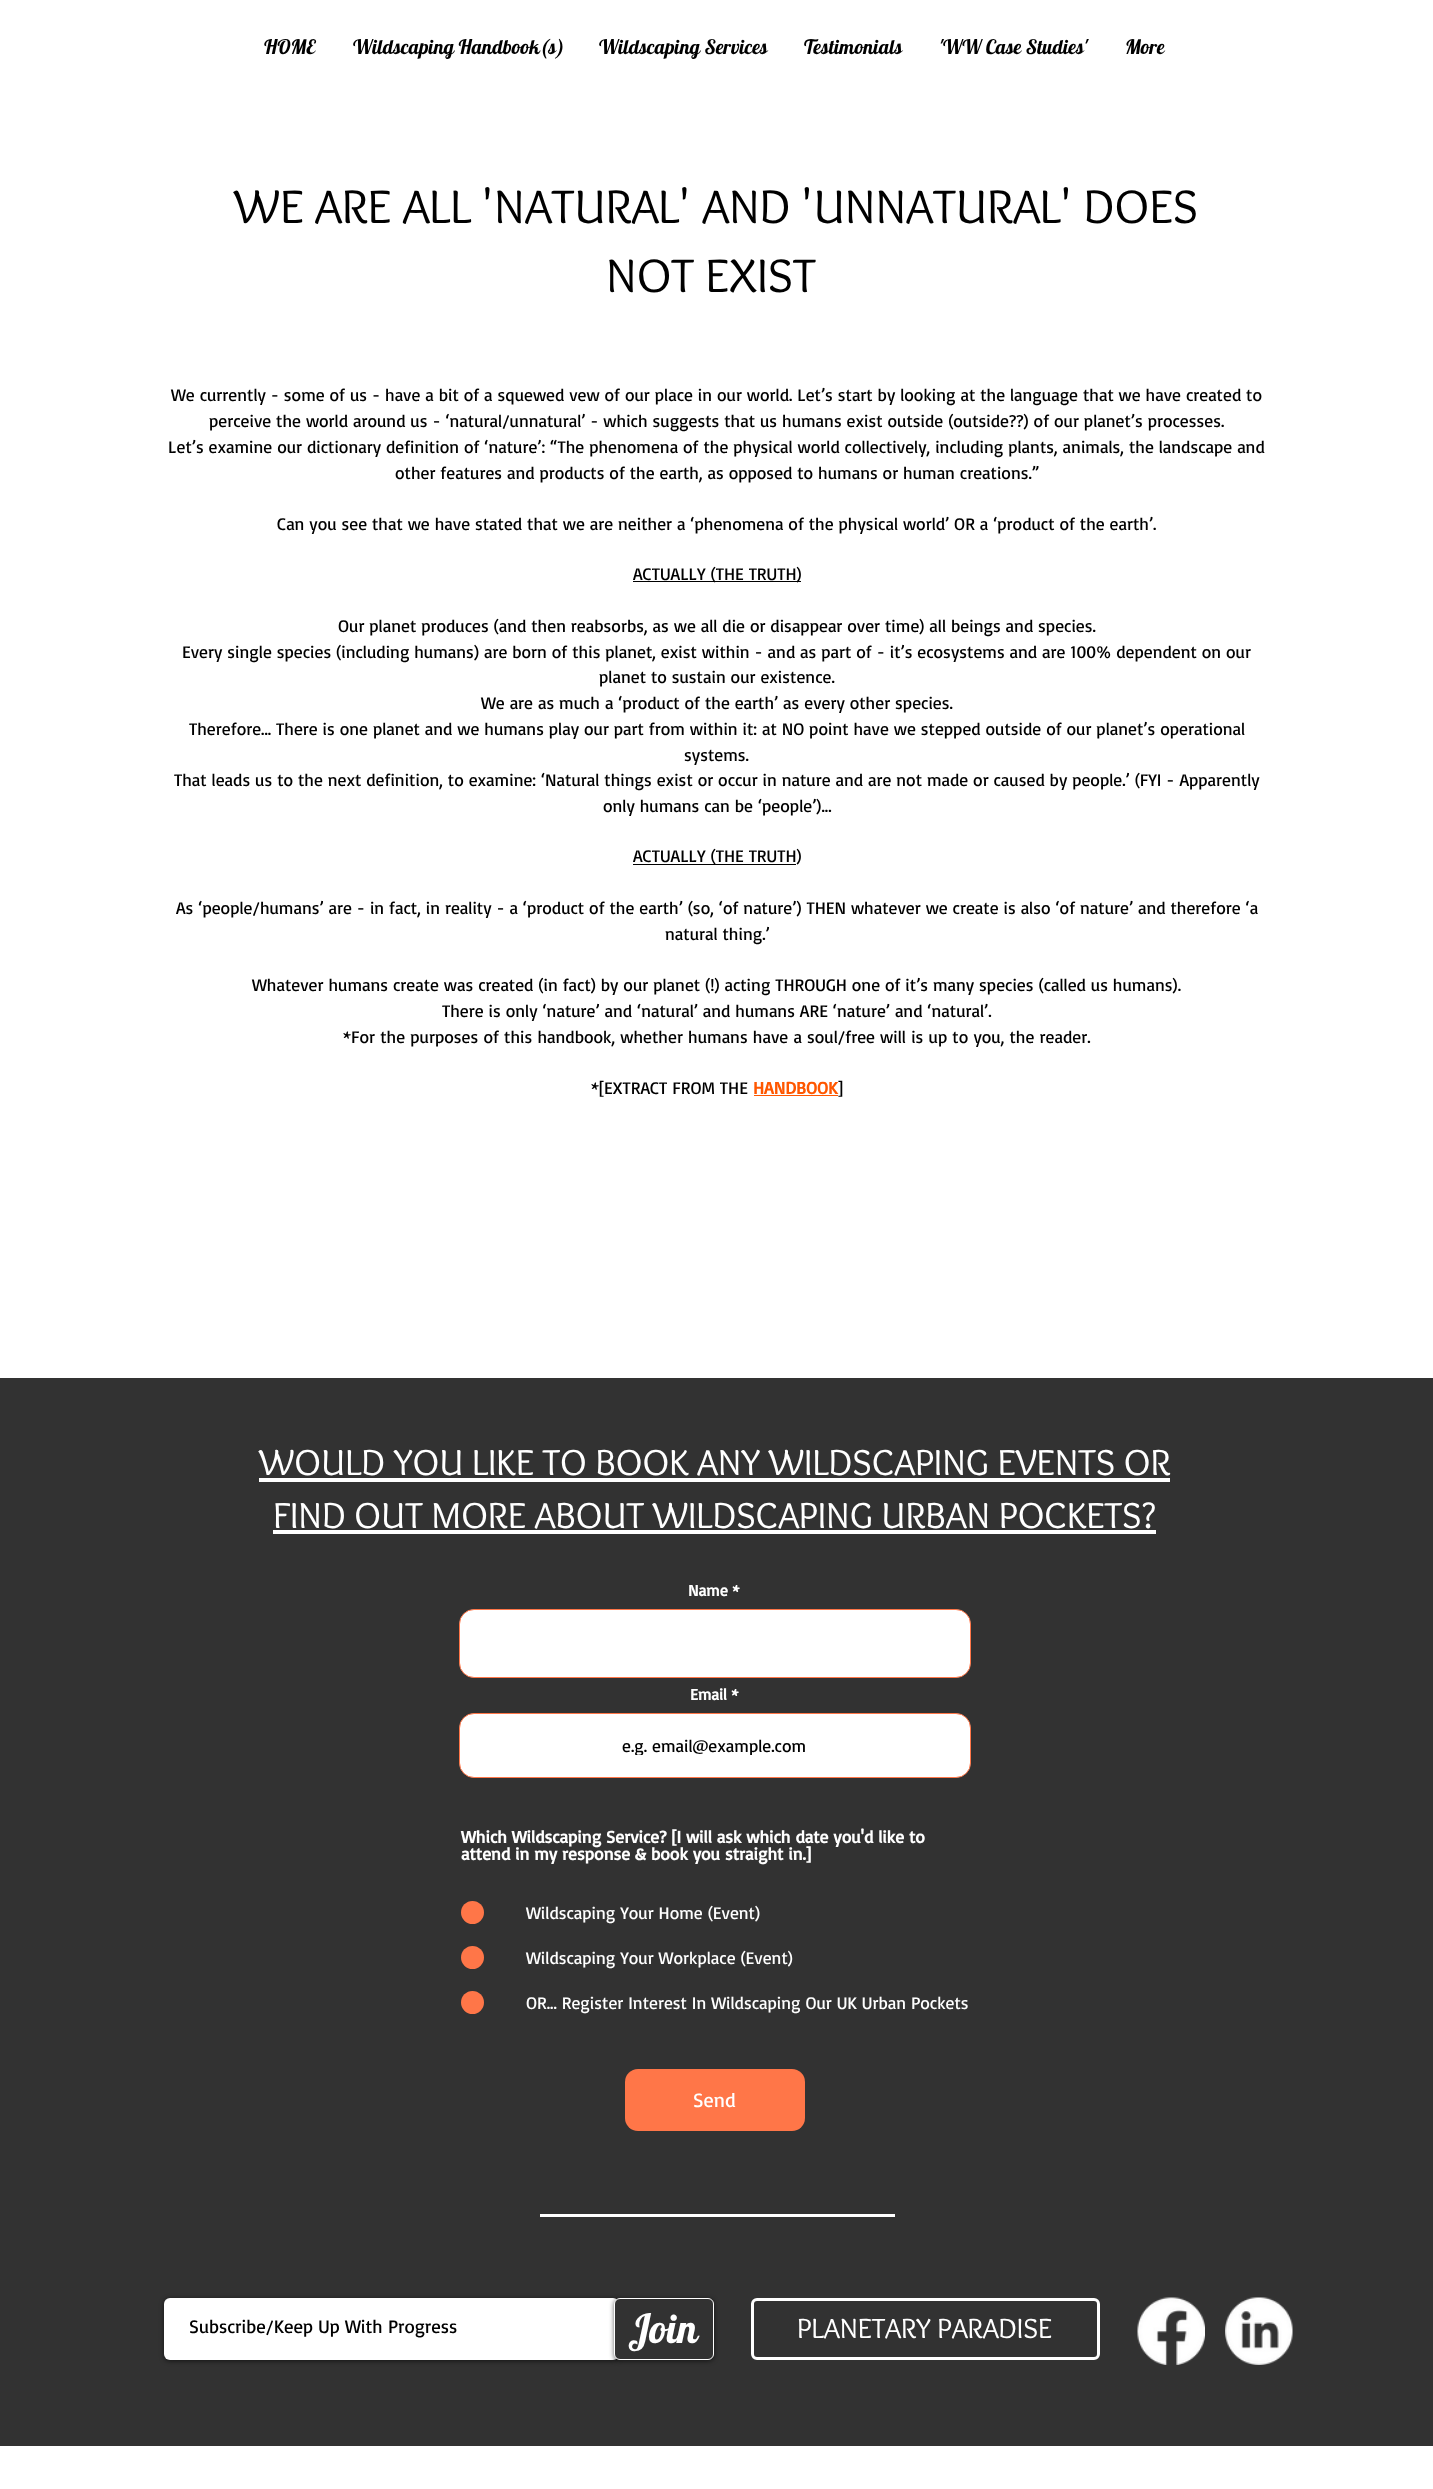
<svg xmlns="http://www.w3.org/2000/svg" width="1433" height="2489">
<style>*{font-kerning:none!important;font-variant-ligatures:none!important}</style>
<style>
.a{font:20px Lobster;fill:#000}
.b{font:48.75px Overlock;fill:#000}
.c{font:17.5px Basic;fill:#000}
.d{font:bold 17.5px Basic;fill:#ff5700}
.e{font:37.5px Overlock;fill:#fff}
.f{font:bold 16px Basic;fill:#fff}
.g{font:bold 17.5px Basic;fill:#fff}
.h{font:17.5px Basic;fill:#fff}
.i{font:20px Basic;fill:#fff}
.j{font:18.75px Basic;fill:#000}
.k{font:40px Lobster;fill:#fff}
.l{font:28.75px Overlock;fill:#fff}
</style>
<defs>
<clipPath id="clip1"><path d="M464 1734h502v21H464z"/></clipPath>
</defs>
<rect width="100%" height="100%" fill="#fff"/>
<path fill="#000" d="M633 581h168v1H633z"/>
<path fill="#000" d="M633 864h163v1H633z"/>
<path fill="#ff5700" d="M754 1095h84v1H754z"/>
<path fill="#323232" d="M0 1378h1433v1068H0z"/>
<path fill="#fff" d="M259 1478h911v4H259z"/>
<path fill="#fff" d="M273 1530h883v4H273z"/>
<rect fill="#fff" stroke="#ff7648" x="459.5" y="1609.5" width="511" height="68" rx="14.5"/>
<rect fill="#fff" stroke="#ff7648" x="459.5" y="1713.5" width="511" height="64" rx="14.5"/>
<circle fill="#ff7648" cx="472.5" cy="1912.5" r="11.5"/>
<circle fill="#ff7648" cx="472.5" cy="1957.5" r="11.5"/>
<circle fill="#ff7648" cx="472.5" cy="2002.5" r="11.5"/>
<rect fill="#ff7648" x="625" y="2069" width="180" height="62" rx="13"/>
<path fill="#fff" d="M540 2214h355v3H540z"/>
<rect fill="#00000099" filter="blur(2.5px)" x="164" y="2299" width="455" height="62" rx="6"/>
<rect fill="#fff" x="164" y="2298" width="455" height="62" rx="6"/>
<rect fill="#00000099" filter="blur(2.5px)" x="614" y="2299" width="100" height="62" rx="6"/>
<rect fill="#323232" stroke="#fff" x="614.5" y="2298.5" width="99" height="61" rx="5.5"/>
<rect fill="none" stroke="#fff" stroke-width="3" x="752.5" y="2299.5" width="346" height="59" rx="4.5"/>
<image href="1.png" x="1137" y="2297" width="68" height="68"/>
<image href="2.png" x="1225" y="2297" width="68" height="68"/>
<text class="a" x="264" y="54">HOME</text>
<text class="a" x="353" y="54">Wildscaping Handbook(s)</text>
<text class="a" x="599" y="54">Wildscaping Services</text>
<text class="a" x="804" y="54">Testimonials</text>
<text class="a" x="939" y="54">'WW Case Studies'</text>
<text class="a" x="1125" y="54">More</text>
<text class="b" x="234" y="223">WE ARE ALL 'NATURAL' AND 'UNNATURAL' DOES</text>
<text class="b" x="606" y="292">NOT EXIST</text>
<text class="c" x="171" y="401">We currently - some of us - have a bit of a squewed vew of our place in our world. Let’s start by looking at the language that we have created to</text>
<text class="c" x="209" y="427">perceive the world around us - ‘natural/unnatural’ - which suggests that us humans exist outside (outside??) of our planet’s processes.</text>
<text class="c" x="168" y="453">Let’s examine our dictionary definition of ‘nature’: “The phenomena of the physical world collectively, including plants, animals, the landscape and</text>
<text class="c" x="395" y="479">other features and products of the earth, as opposed to humans or human creations.”</text>
<text class="c" x="277" y="530">Can you see that we have stated that we are neither a ‘phenomena of the physical world’ OR a ‘product of the earth’.</text>
<text class="c" x="633" y="580">ACTUALLY (THE TRUTH)</text>
<text class="c" x="338" y="632">Our planet produces (and then reabsorbs, as we all die or disappear over time) all beings and species.</text>
<text class="c" x="182" y="658">Every single species (including humans) are born of this planet, exist within - and as part of - it’s ecosystems and are 100% dependent on our</text>
<text class="c" x="599" y="683">planet to sustain our existence.</text>
<text class="c" x="481" y="709">We are as much a ‘product of the earth’ as every other species.</text>
<text class="c" x="189" y="735">Therefore... There is one planet and we humans play our part from within it: at NO point have we stepped outside of our planet’s operational</text>
<text class="c" x="684" y="761">systems.</text>
<text class="c" x="174" y="786">That leads us to the next definition, to examine: ‘Natural things exist or occur in nature and are not made or caused by people.’ (FYI - Apparently</text>
<text class="c" x="603" y="812">only humans can be ‘people’)...</text>
<text class="c" x="633" y="862">ACTUALLY (THE TRUTH)</text>
<text class="c" x="176" y="914">As ‘people/humans’ are - in fact, in reality - a ‘product of the earth’ (so, ‘of nature’) THEN whatever we create is also ‘of nature’ and therefore ‘a</text>
<text class="c" x="665" y="940">natural thing.’</text>
<text class="c" x="252" y="991">Whatever humans create was created (in fact) by our planet (!) acting THROUGH one of it’s many species (called us humans).</text>
<text class="c" x="442" y="1017">There is only ‘nature’ and ‘natural’ and humans ARE ‘nature’ and ‘natural’.</text>
<text class="c" x="343" y="1043" word-spacing="0.25">*For the purposes of this handbook, whether humans have a soul/free will is up to you, the reader.</text>
<text class="c" x="591" y="1094">*[EXTRACT FROM THE</text>
<text class="d" x="753" y="1094">HANDBOOK</text>
<text class="c" x="838" y="1094">]</text>
<text class="e" x="259" y="1475">WOULD YOU LIKE TO BOOK ANY WILDSCAPING EVENTS OR</text>
<text class="e" x="273" y="1528">FIND OUT MORE ABOUT WILDSCAPING URBAN POCKETS?</text>
<text class="f" x="688" y="1596">Name *</text>
<text class="f" x="690" y="1700">Email *</text>
<g clip-path="url(#clip1)">
<text class="c" x="622" y="1752">e.g. email@example.com</text>
</g>
<text class="g" x="461" y="1843">Which Wildscaping Service? [I will ask which date you'd like to</text>
<text class="g" x="461" y="1860">attend in my response &amp; book you straight in.]</text>
<text class="h" x="526" y="1919">Wildscaping Your Home (Event)</text>
<text class="h" x="526" y="1964">Wildscaping Your Workplace (Event)</text>
<text class="h" x="526" y="2009">OR... Register Interest In Wildscaping Our UK Urban Pockets</text>
<text class="i" x="693" y="2107">Send</text>
<text class="j" x="189" y="2333">Subscribe/Keep Up With Progress</text>
<text class="k" x="628" y="2343">Join</text>
<text class="l" x="797" y="2338">PLANETARY PARADISE</text>
</svg>
